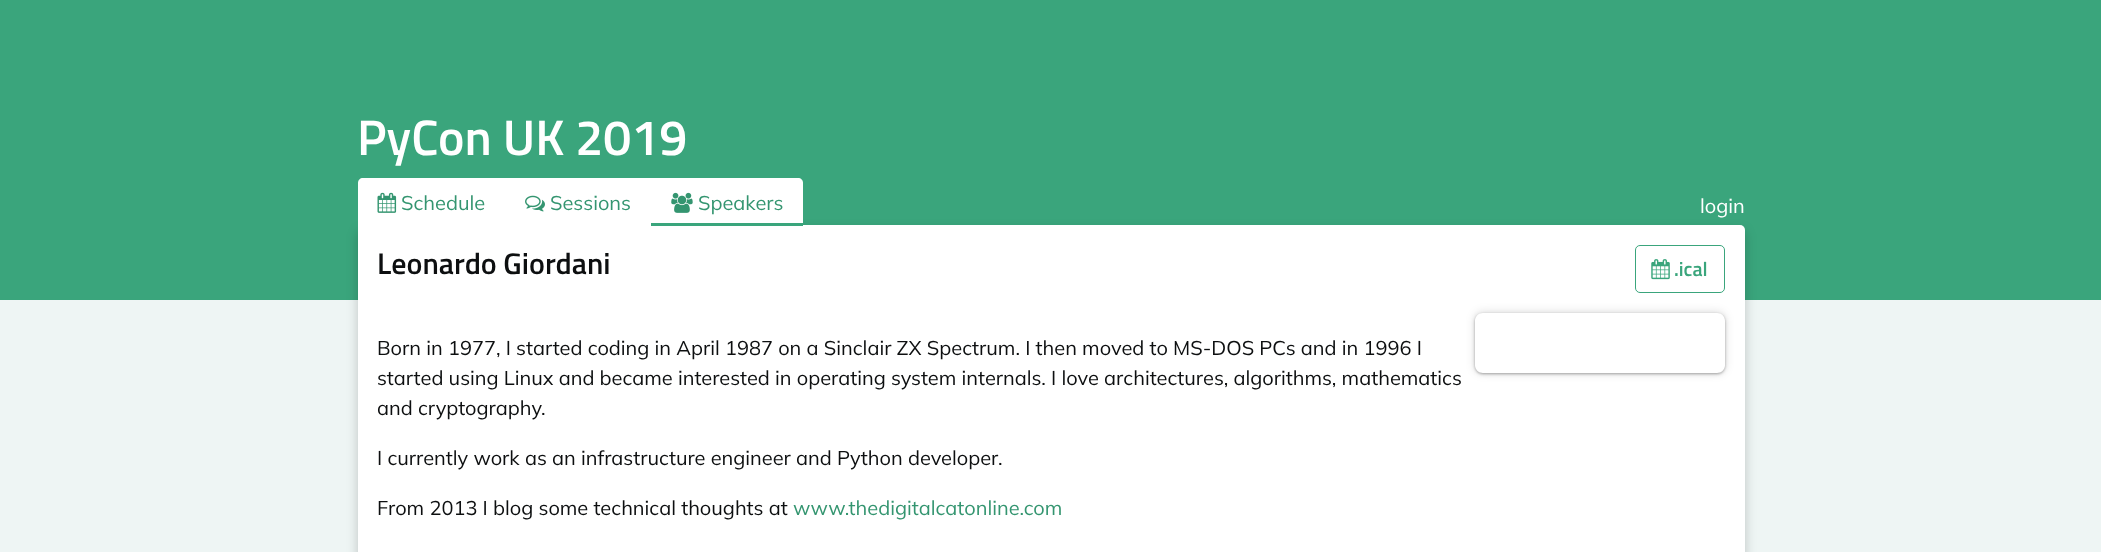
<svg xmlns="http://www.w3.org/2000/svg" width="2101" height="552">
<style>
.a{font:600 50px Titillium Web;fill:#fff}
.b{font:200 20px Mulish;fill:#349570}
.c{font:200 20px Mulish;fill:#fff}
.d{font:600 30px Titillium Web;fill:#0d0f10}
.e{font:600 20px Titillium Web;fill:#3aa57c}
.f{font:200 20px Mulish;fill:#0d0f10}
</style>
<defs>
<clipPath id="clip1"><path d="M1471 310h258v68h-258zm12 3h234c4.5 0 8 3.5 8 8v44c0 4.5-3.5 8-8 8h-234c-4.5 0-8-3.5-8-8v-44c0-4.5 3.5-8 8-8z" clip-rule="evenodd"/></clipPath>
<clipPath id="clip2"><path d="M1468 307h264v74h-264zm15 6h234c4.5 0 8 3.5 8 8v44c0 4.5-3.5 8-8 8h-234c-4.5 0-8-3.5-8-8v-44c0-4.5 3.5-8 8-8z" clip-rule="evenodd"/></clipPath>
<clipPath id="clip3"><path d="M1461 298h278v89h-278zm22 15h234c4.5 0 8 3.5 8 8v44c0 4.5-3.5 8-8 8h-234c-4.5 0-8-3.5-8-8v-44c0-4.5 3.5-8 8-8z" clip-rule="evenodd"/></clipPath>
</defs>
<rect width="100%" height="100%" fill="#eef5f4"/>
<path fill="#3aa57c" d="M0 0h2101v300H0z"/>
<rect fill="#00000033" filter="blur(6px)" x="358" y="231" width="1387" height="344" rx="5"/>
<rect fill="#fff" x="358" y="225" width="1387" height="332" rx="5"/>
<path fill="#fff" d="M363 178h435c3 0 5 2 5 5v47h-445v-47c0-3 2-5 5-5z"/>
<image href="1.png" x="377" y="192" width="20" height="21"/>
<image href="2.png" x="525" y="195" width="20" height="17"/>
<path fill="#3aa57c" d="M651 223h152v3H651z"/>
<image href="3.png" x="671" y="192" width="22" height="21"/>
<rect fill="none" stroke="#3aa57c" x="1635.5" y="245.5" width="89" height="47" rx="4.5"/>
<image href="4.png" x="1651" y="259" width="19" height="21"/>
<g clip-path="url(#clip1)">
<rect fill="#0000003d" filter="blur(1px)" x="1475" y="314" width="250" height="60" rx="8"/>
</g>
<g clip-path="url(#clip2)">
<rect fill="#0000001f" filter="blur(2px)" x="1475" y="314" width="250" height="60" rx="8"/>
</g>
<g clip-path="url(#clip3)">
<rect fill="#0000001a" filter="blur(4px)" x="1474" y="311" width="252" height="63" rx="9"/>
</g>
<text class="a" x="357" y="155">PyCon UK 2019</text>
<text class="b" x="401" y="210">Schedule</text>
<text class="b" x="550" y="210">Sessions</text>
<text class="b" x="698" y="210">Speakers</text>
<text class="c" x="1700" y="213">login</text>
<text class="d" x="377" y="274">Leonardo Giordani</text>
<text class="e" x="1674" y="276">.ical</text>
<text class="f" x="377" y="355">Born in 1977, I started coding in April 1987 on a Sinclair ZX Spectrum. I then moved to MS-DOS PCs and in 1996 I</text>
<text class="f" x="377" y="385">started using Linux and became interested in operating system internals. I love architectures, algorithms, mathematics</text>
<text class="f" x="377" y="415">and cryptography.</text>
<text class="f" x="377" y="465">I currently work as an infrastructure engineer and Python developer.</text>
<text class="f" x="377" y="515">From 2013 I blog some technical thoughts at</text>
<text class="b" x="793" y="515">www.thedigitalcatonline.com</text>
</svg>
